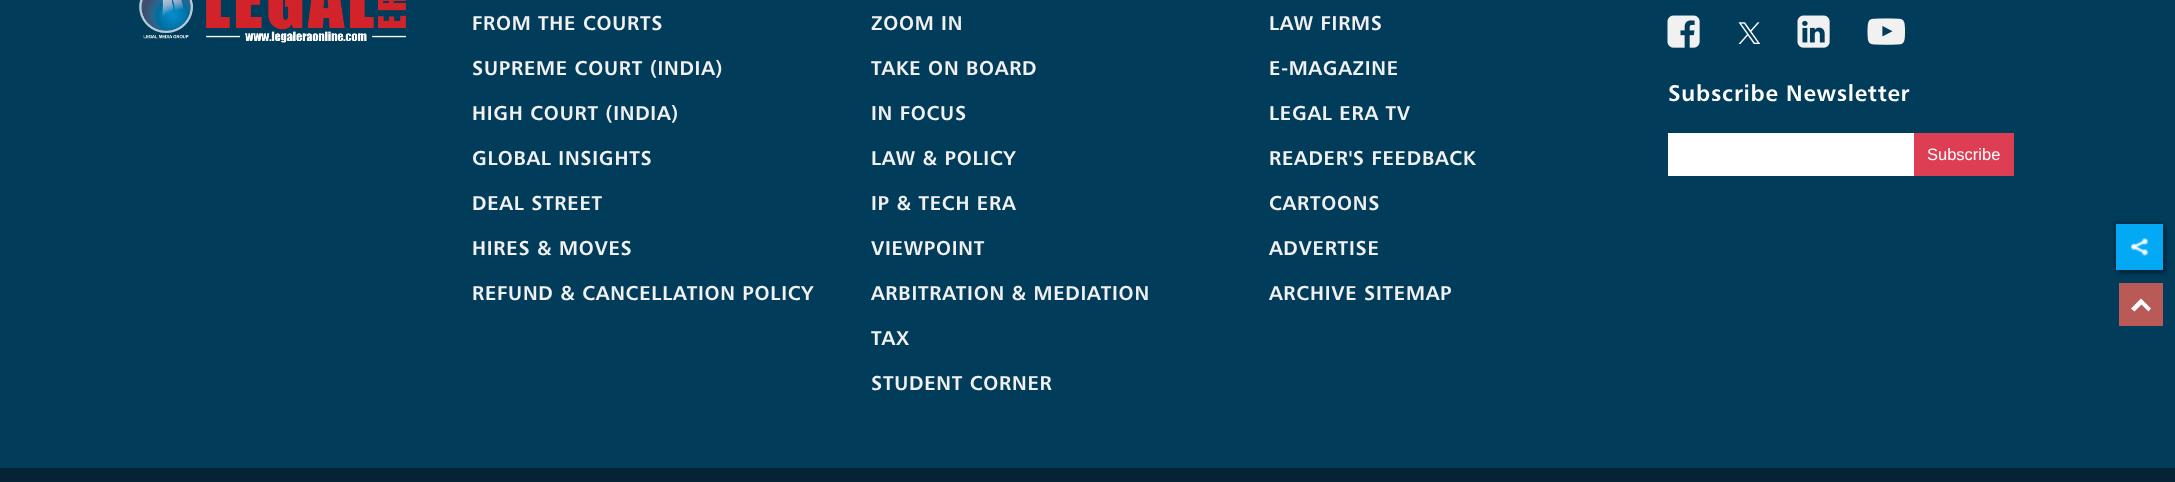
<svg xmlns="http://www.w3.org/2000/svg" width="2175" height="482">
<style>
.a{font:bold 20px 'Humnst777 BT';letter-spacing:0.75px;fill:#f1f1f1}
.b{font:bold 22.5px 'Humnst777 BT';letter-spacing:0.75px;fill:#fff}
.c{font:16.5px Liberation Sans;fill:#fff}
</style>
<rect width="100%" height="100%" fill="#023c5b"/>
<image href="1.png" x="139" y="0" width="267" height="43"/>
<image href="2.png" x="1667" y="15" width="33" height="33"/>
<image href="3.png" x="1738" y="22" width="23" height="22"/>
<image href="4.png" x="1797" y="15" width="33" height="33"/>
<image href="5.png" x="1867" y="18" width="38" height="27"/>
<path fill="#fff" d="M1668 133h246v43H1668z"/>
<path fill="#de3e53" d="M1914 133h100v43H1914z"/>
<path fill="#052335" d="M0 468h2175v14H0z"/>
<path fill="#00000040" filter="blur(2px)" d="M2120 228h46v46H2120z"/>
<path fill="#00000080" filter="blur(2px)" d="M2116 224h47v46H2116z"/>
<path fill="#03a9f4" d="M2116 224h47v46H2116z"/>
<image href="6.png" x="2130" y="238" width="19" height="18"/>
<path fill="#ba5a57" d="M2119 283h44v43H2119z"/>
<path fill="#fff" d="M2141 298.5l10 10l-2.5 3l-7-7l-7 7l-3.5-3z"/>
<text class="a" x="472" y="30">FROM THE COURTS</text>
<text class="a" x="472" y="75">SUPREME COURT (INDIA)</text>
<text class="a" x="472" y="120">HIGH COURT (INDIA)</text>
<text class="a" x="472" y="165">GLOBAL INSIGHTS</text>
<text class="a" x="472" y="210">DEAL STREET</text>
<text class="a" x="472" y="255">HIRES &amp; MOVES</text>
<text class="a" x="472" y="300">REFUND &amp; CANCELLATION POLICY</text>
<text class="a" x="871" y="30">ZOOM IN</text>
<text class="a" x="871" y="75">TAKE ON BOARD</text>
<text class="a" x="871" y="120">IN FOCUS</text>
<text class="a" x="871" y="165">LAW &amp; POLICY</text>
<text class="a" x="871" y="210">IP &amp; TECH ERA</text>
<text class="a" x="871" y="255">VIEWPOINT</text>
<text class="a" x="871" y="300">ARBITRATION &amp; MEDIATION</text>
<text class="a" x="871" y="345">TAX</text>
<text class="a" x="871" y="390">STUDENT CORNER</text>
<text class="a" x="1269" y="30">LAW FIRMS</text>
<text class="a" x="1269" y="75">E-MAGAZINE</text>
<text class="a" x="1269" y="120">LEGAL ERA TV</text>
<text class="a" x="1269" y="165">READER'S FEEDBACK</text>
<text class="a" x="1269" y="210">CARTOONS</text>
<text class="a" x="1269" y="255">ADVERTISE</text>
<text class="a" x="1269" y="300">ARCHIVE SITEMAP</text>
<text class="b" x="1668" y="101">Subscribe Newsletter</text>
<text class="c" x="1927" y="160">Subscribe</text>
</svg>
